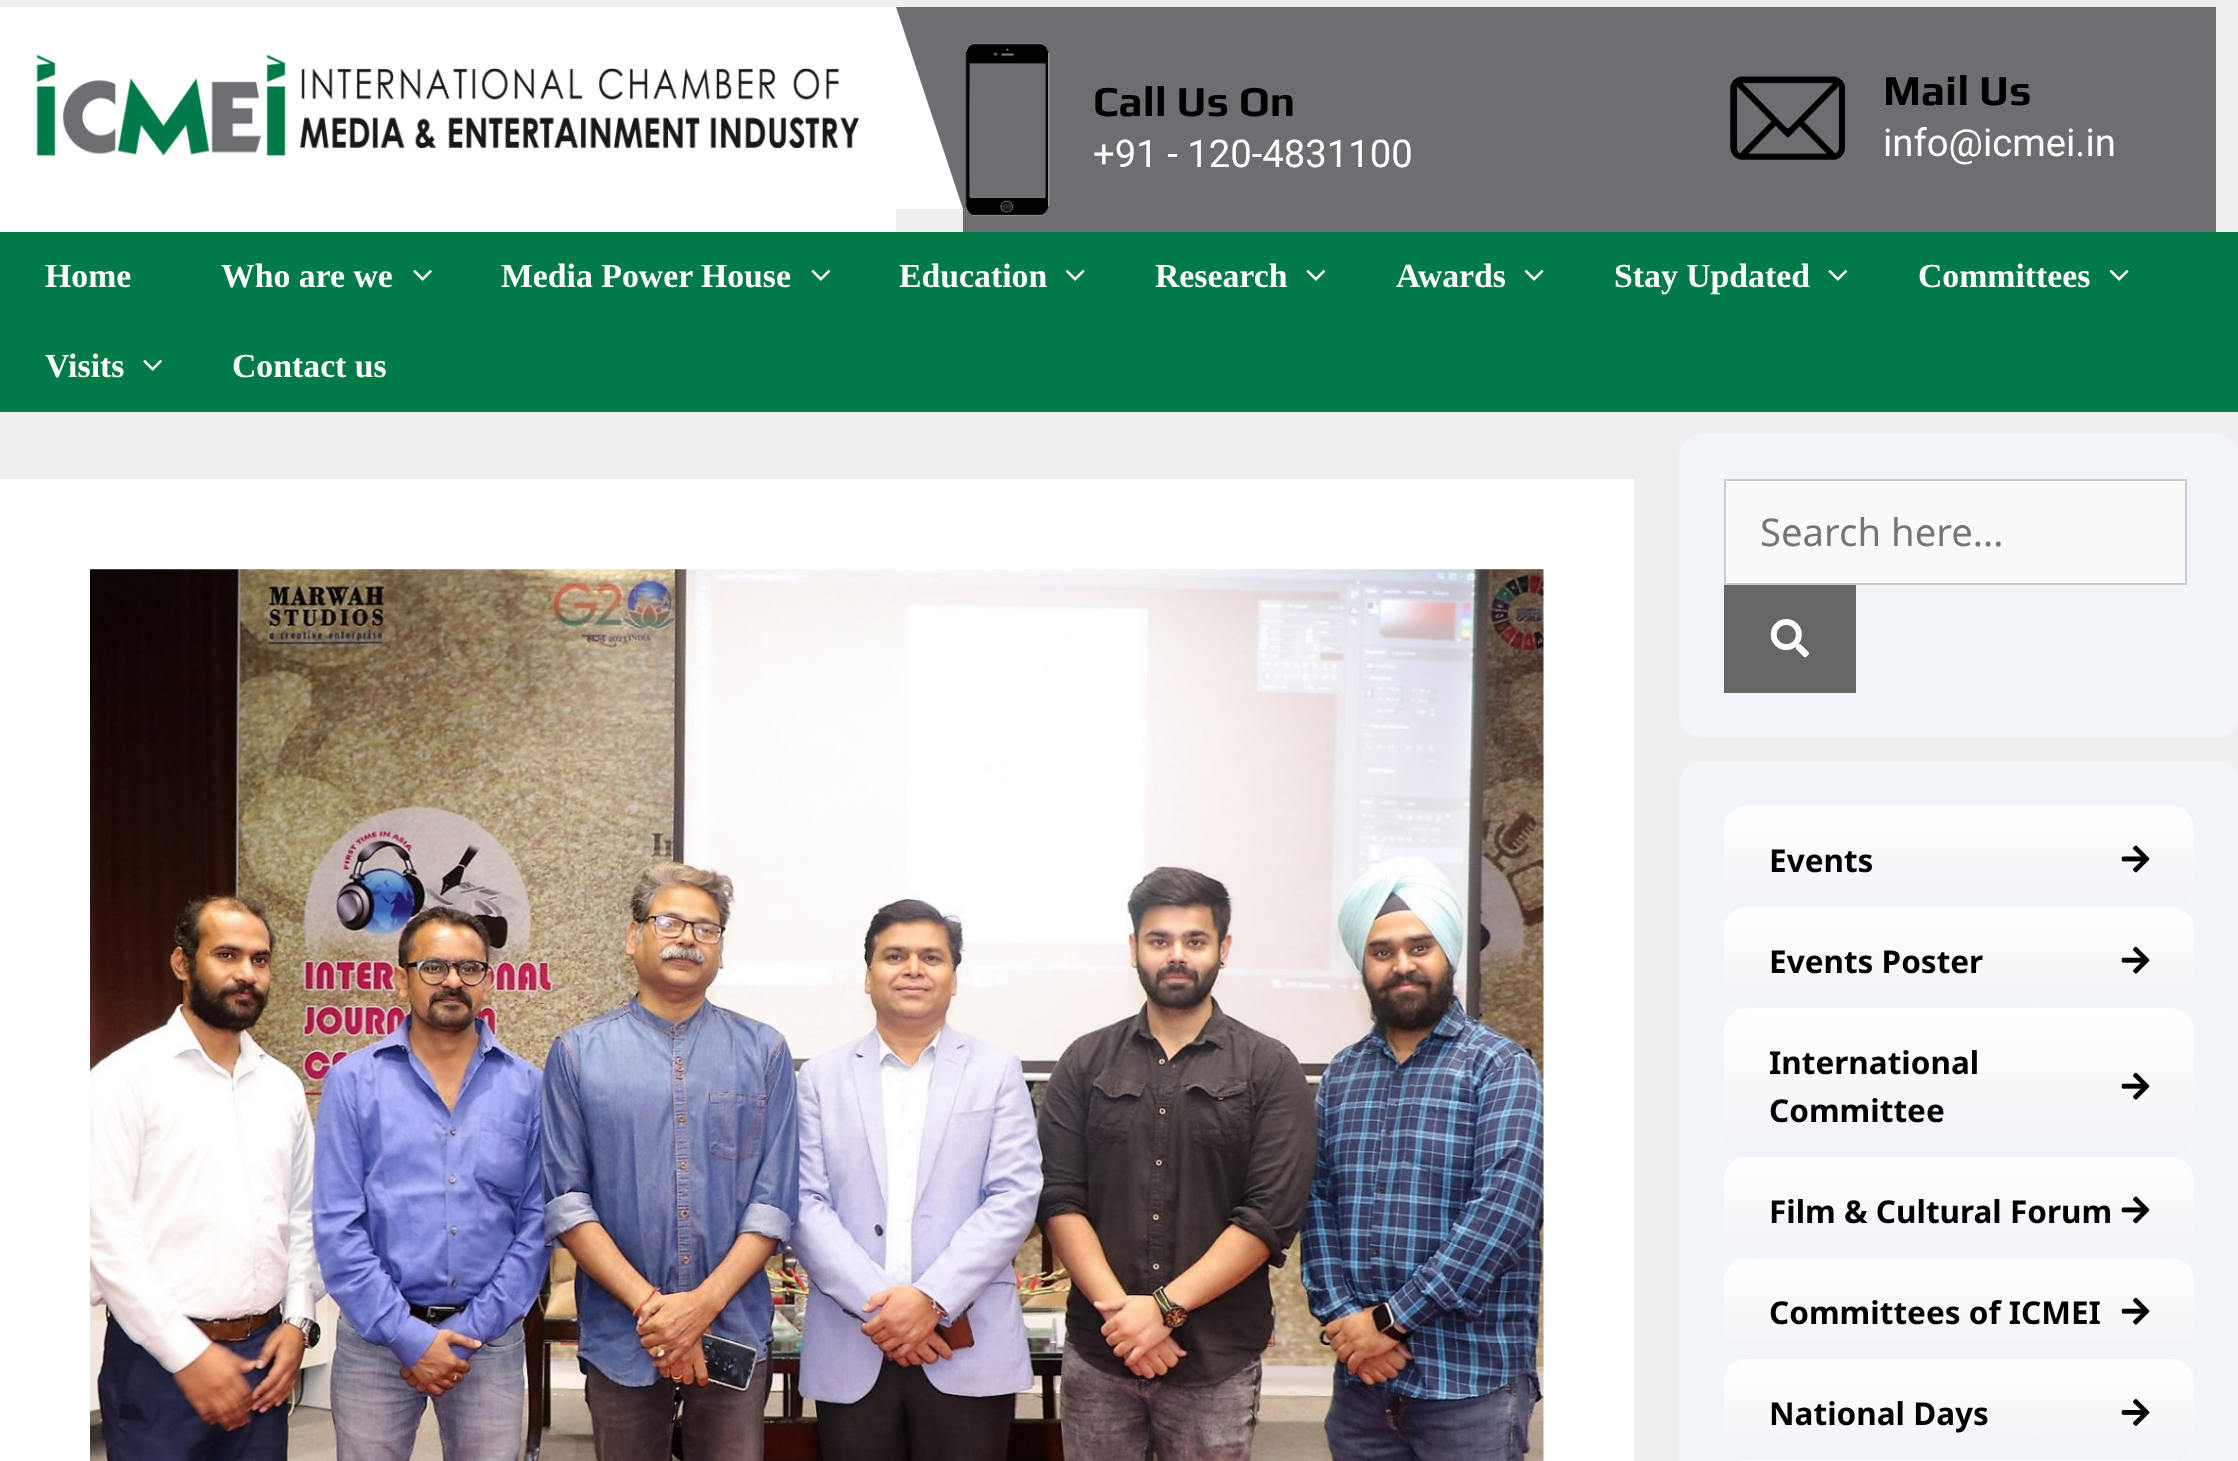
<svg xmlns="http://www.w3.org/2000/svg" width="2238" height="1461">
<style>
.a{font:bold 42.75px Play;fill:#000}
.b{font:38.25px Roboto;fill:#fff}
.c{font:bold 33.75px Liberation Serif;fill:#fff}
.d{font:38.25px Noto Sans;fill:#757575}
.e{font:bold 31.5px Noto Sans;fill:#000}
</style>
<defs>
<linearGradient id="g1" gradientUnits="userSpaceOnUse" x1="1959" y1="907" x2="1959" y2="806"><stop offset="0" stop-color="#f0f3f7"/><stop offset="1" stop-color="#fff"/></linearGradient>
<linearGradient id="g2" gradientUnits="userSpaceOnUse" x1="1959" y1="1008" x2="1959" y2="907"><stop offset="0" stop-color="#f0f3f7"/><stop offset="1" stop-color="#fff"/></linearGradient>
<linearGradient id="g3" gradientUnits="userSpaceOnUse" x1="1959" y1="1157" x2="1959" y2="1008"><stop offset="0" stop-color="#f0f3f7"/><stop offset="1" stop-color="#fff"/></linearGradient>
<linearGradient id="g4" gradientUnits="userSpaceOnUse" x1="1959" y1="1258" x2="1959" y2="1157"><stop offset="0" stop-color="#f0f3f7"/><stop offset="1" stop-color="#fff"/></linearGradient>
<linearGradient id="g5" gradientUnits="userSpaceOnUse" x1="1959" y1="1359" x2="1959" y2="1258"><stop offset="0" stop-color="#f0f3f7"/><stop offset="1" stop-color="#fff"/></linearGradient>
<linearGradient id="g6" gradientUnits="userSpaceOnUse" x1="1959" y1="1460" x2="1959" y2="1359"><stop offset="0" stop-color="#f0f3f7"/><stop offset="1" stop-color="#fff"/></linearGradient>
<linearGradient id="g7" gradientUnits="userSpaceOnUse" x1="1959" y1="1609" x2="1959" y2="1460"><stop offset="0" stop-color="#f0f3f7"/><stop offset="1" stop-color="#fff"/></linearGradient>
</defs>
<rect width="100%" height="100%" fill="#efefef"/>
<path fill="#fff" d="M0 7h896v225H0z"/>
<image href="1.png" x="36" y="54" width="823" height="102"/>
<path fill="#fff" d="M896 7h67v202H896z"/>
<path fill="#6d6e71" d="M896 7h67v202z"/>
<path fill="#6d6e71" d="M963 7h1253v225H963z"/>
<image href="2.png" x="965" y="43" width="85" height="173"/>
<image href="3.png" x="1730" y="76" width="115" height="84"/>
<path fill="#007a47" d="M0 232h2238v180H0z"/>
<image href="4.png" x="413" y="269" width="19" height="12"/>
<image href="5.png" x="811" y="269" width="20" height="12"/>
<image href="6.png" x="1065" y="269" width="20" height="12"/>
<image href="5.png" x="1306" y="269" width="20" height="12"/>
<image href="6.png" x="1524" y="269" width="20" height="12"/>
<image href="5.png" x="1828" y="269" width="20" height="12"/>
<image href="6.png" x="2109" y="269" width="20" height="12"/>
<image href="4.png" x="143" y="359" width="19" height="12"/>
<path fill="#fff" d="M0 479h1634v982H0z"/>
<image href="7.png" x="90" y="569" width="1454" height="892"/>
<rect fill="#f2f5f9" x="1679" y="434" width="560" height="304" rx="23"/>
<path fill="#fafafa" stroke="#ccc" stroke-width="2" d="M1725 480h461v104H1725z"/>
<path fill="#666" d="M1724 585h132v108H1724z"/>
<image href="8.png" x="1770" y="619" width="39" height="39"/>
<rect fill="#f2f5f9" x="1679" y="761" width="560" height="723" rx="23"/>
<rect fill="url(#g1)" x="1724" y="806" width="470" height="101" rx="23"/>
<image href="9.png" x="2121" y="845" width="29" height="28"/>
<rect fill="url(#g2)" x="1724" y="907" width="470" height="101" rx="23"/>
<image href="10.png" x="2121" y="946" width="29" height="28"/>
<rect fill="url(#g3)" x="1724" y="1008" width="470" height="149" rx="23"/>
<image href="11.png" x="2121" y="1072" width="29" height="28"/>
<rect fill="url(#g4)" x="1724" y="1157" width="470" height="101" rx="23"/>
<image href="9.png" x="2121" y="1196" width="29" height="28"/>
<rect fill="url(#g5)" x="1724" y="1258" width="470" height="101" rx="23"/>
<image href="10.png" x="2121" y="1297" width="29" height="28"/>
<rect fill="url(#g6)" x="1724" y="1359" width="470" height="101" rx="23"/>
<image href="12.png" x="2121" y="1399" width="29" height="27"/>
<rect fill="url(#g7)" x="1724" y="1460" width="470" height="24" rx="23"/>
<text class="a" x="1093" y="116">Call Us On</text>
<text class="b" x="1093" y="167">+91 - 120-4831100</text>
<text class="a" x="1883" y="105">Mail Us</text>
<text class="b" x="1883" y="156">info@icmei.in</text>
<text class="c" x="45" y="287">Home</text>
<text class="c" x="221" y="287">Who are we</text>
<text class="c" x="501" y="287">Media Power House</text>
<text class="c" x="899" y="287">Education</text>
<text class="c" x="1155" y="287">Research</text>
<text class="c" x="1396" y="287">Awards</text>
<text class="c" x="1614" y="287">Stay Updated</text>
<text class="c" x="1918" y="287">Committees</text>
<text class="c" x="45" y="377">Visits</text>
<text class="c" x="232" y="377">Contact us</text>
<text class="d" x="1760" y="546">Search here...</text>
<text class="e" x="1769" y="872">Events</text>
<text class="e" x="1769" y="973">Events Poster</text>
<text class="e" x="1769" y="1074">International</text>
<text class="e" x="1769" y="1122">Committee</text>
<text class="e" x="1769" y="1223">Film &amp; Cultural Forum</text>
<text class="e" x="1769" y="1324">Committees of ICMEI</text>
<text class="e" x="1769" y="1425">National Days</text>
</svg>
